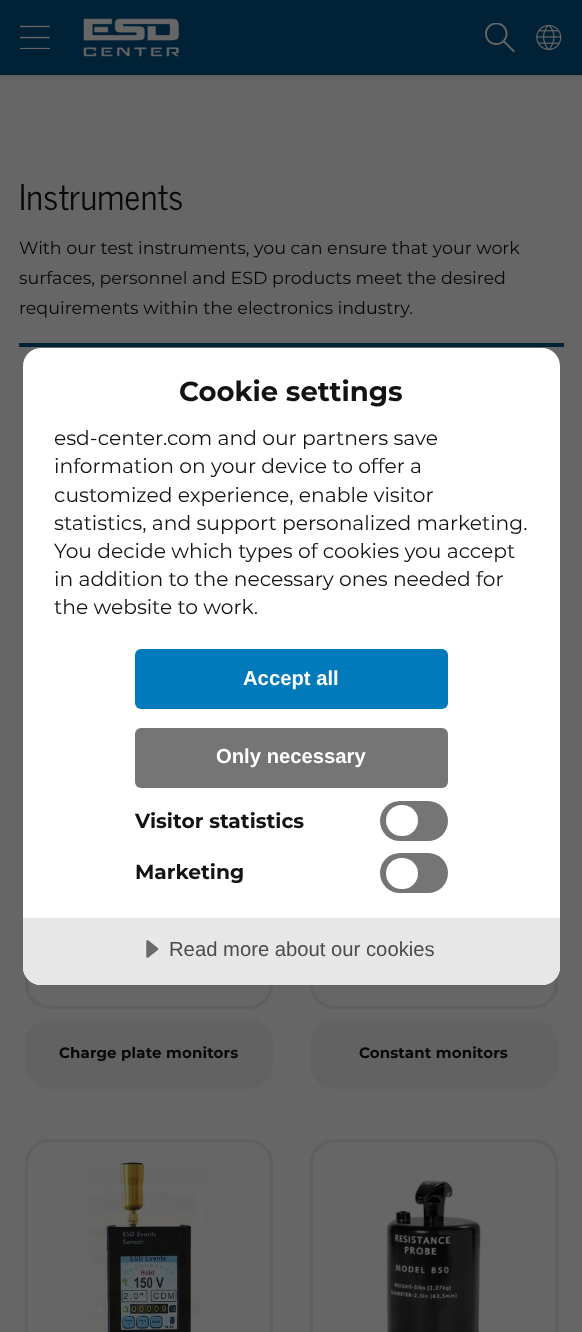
<svg xmlns="http://www.w3.org/2000/svg" width="582" height="1332">
<style>
.a{font:35px News Cycle;letter-spacing:0.3px;fill:#070808}
.b{font:17.5px Montserrat;fill:#070808}
.c{font:bold 15px Montserrat;letter-spacing:0.15px;fill:#070808}
.d{font:bold 27.5px Montserrat;fill:#121313}
.e{font:20.25px Montserrat;fill:#121313}
.f{font:bold 20.25px Liberation Sans;fill:#fff}
.g{font:bold 20.25px Montserrat;fill:#121313}
.h{font:20.25px Liberation Sans;fill:#4b4b4b}
</style>
<rect width="100%" height="100%" fill="#666"/>
<path fill="#00000033" filter="blur(2.5px)" d="M0 0h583v75H0z"/>
<path fill="#002136" d="M0 0h582v75H0z"/>
<image href="1.png" x="20" y="25" width="30" height="24"/>
<image href="2.png" x="83" y="18" width="96" height="39"/>
<image href="3.png" x="485" y="23" width="30" height="30"/>
<image href="4.png" x="536" y="25" width="26" height="25"/>
<path fill="#002136" d="M19 343h545v4H19z"/>
<rect fill="none" stroke="#5f5f5f" stroke-width="3" x="26.5" y="762.5" width="245" height="245" rx="23.5"/>
<rect fill="#626262" x="25" y="1019" width="248" height="70" rx="25"/>
<rect fill="none" stroke="#5f5f5f" stroke-width="3" x="311.5" y="762.5" width="245" height="245" rx="23.5"/>
<rect fill="#626262" x="310" y="1019" width="248" height="70" rx="25"/>
<rect fill="none" stroke="#5f5f5f" stroke-width="3" x="26.5" y="1140.5" width="245" height="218" rx="23.5"/>
<image href="5.png" x="89" y="1159" width="119" height="173"/>
<rect fill="none" stroke="#5f5f5f" stroke-width="3" x="311.5" y="1140.5" width="245" height="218" rx="23.5"/>
<image href="6.png" x="385" y="1180" width="97" height="152"/>
<rect fill="#fff" x="23" y="348" width="537" height="637" rx="18"/>
<rect fill="#017abc" x="135" y="649" width="313" height="60" rx="6"/>
<rect fill="#757575" x="135" y="728" width="313" height="60" rx="6"/>
<rect fill="#757575" x="380" y="801" width="68" height="40" rx="20"/>
<rect fill="#fff" x="386" y="805" width="32" height="31" rx="15.5"/>
<rect fill="#757575" x="380" y="853" width="68" height="40" rx="20"/>
<rect fill="#fff" x="386" y="858" width="32" height="31" rx="15.5"/>
<path fill="#e7e7e7" d="M23 918h537v49c0 10-8 18-18 18h-501c-10 0-18-8-18-18z"/>
<image href="7.png" x="146" y="940" width="13" height="18"/>
<text class="a" x="19" y="210">Instruments</text>
<text class="b" x="19" y="254">With our test instruments, you can ensure that your work</text>
<text class="b" x="19" y="284">surfaces, personnel and ESD products meet the desired</text>
<text class="b" x="19" y="314">requirements within the electronics industry.</text>
<text class="c" x="59" y="1058">Charge plate monitors</text>
<text class="c" x="359" y="1058">Constant monitors</text>
<text class="d" x="179" y="401">Cookie settings</text>
<text class="e" x="54" y="445">esd-center.com and our partners save</text>
<text class="e" x="54" y="473">information on your device to offer a</text>
<text class="e" x="54" y="502">customized experience, enable visitor</text>
<text class="e" x="54" y="530">statistics, and support personalized marketing.</text>
<text class="e" x="54" y="558">You decide which types of cookies you accept</text>
<text class="e" x="54" y="586">in addition to the necessary ones needed for</text>
<text class="e" x="54" y="614">the website to work.</text>
<text class="f" x="243" y="685">Accept all</text>
<text class="f" x="216" y="763">Only necessary</text>
<text class="g" x="135" y="828">Visitor statistics</text>
<text class="g" x="135" y="879">Marketing</text>
<text class="h" x="169" y="956">Read more about our cookies</text>
</svg>
